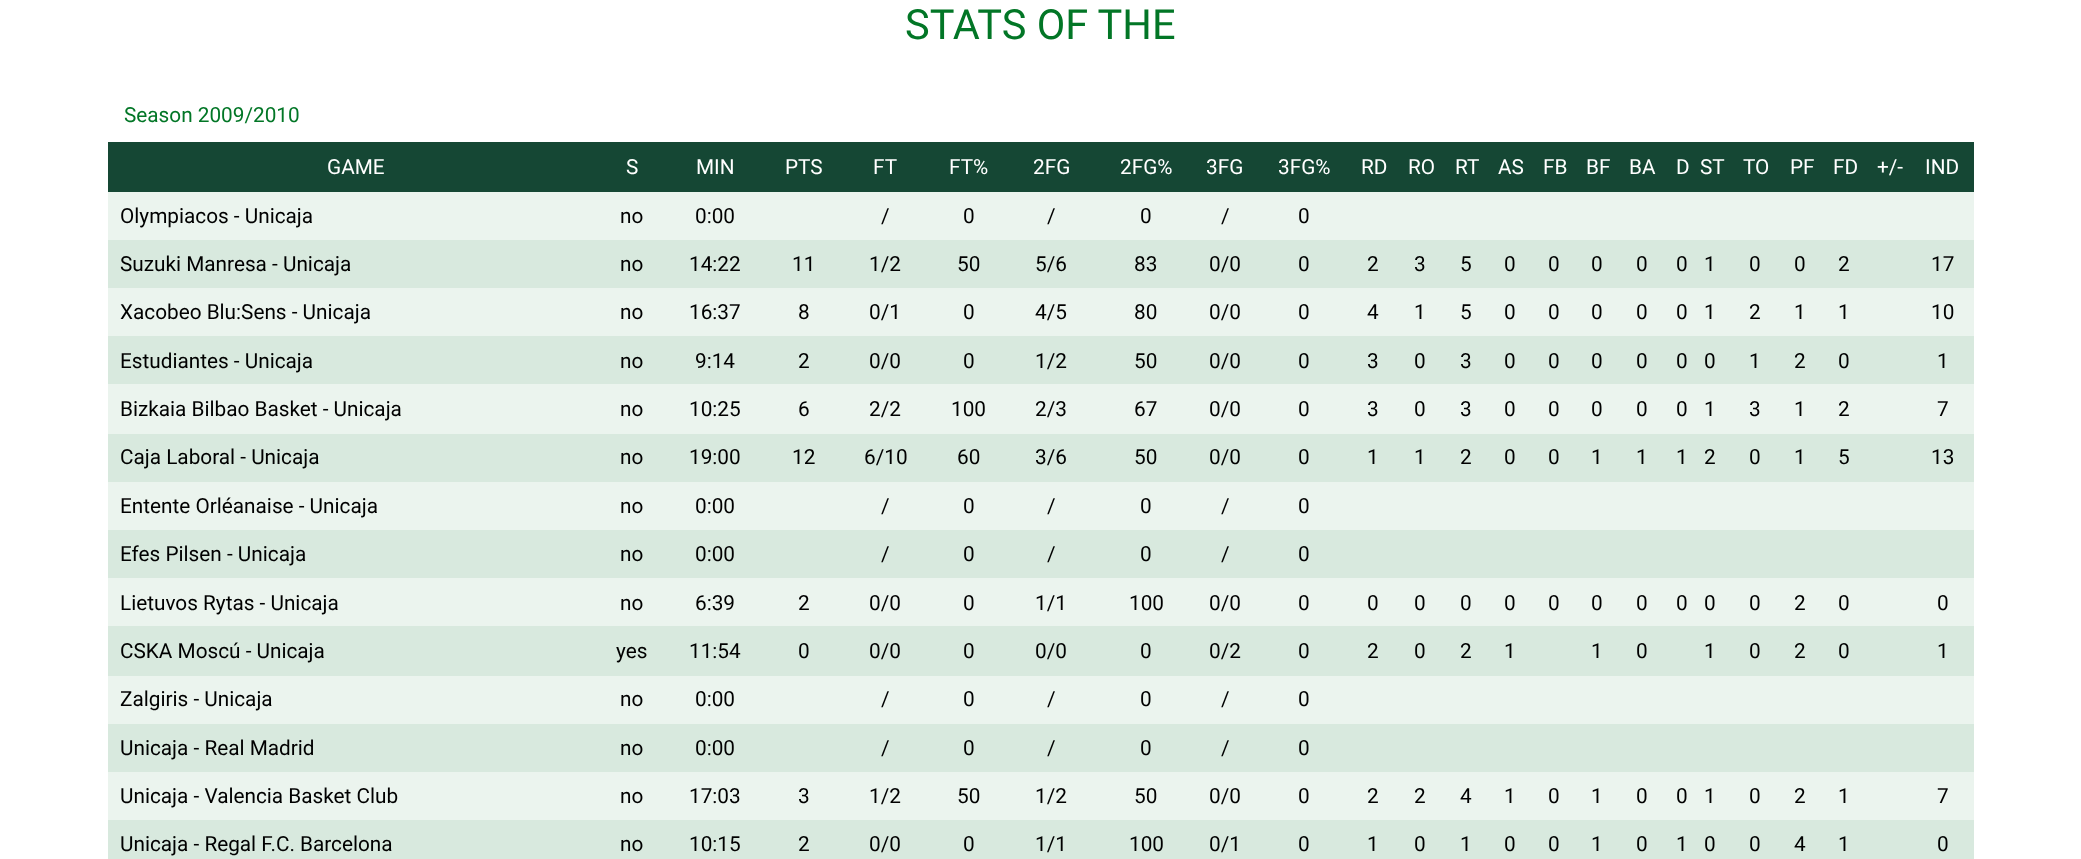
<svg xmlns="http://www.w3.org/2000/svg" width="2081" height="859">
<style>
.a{font:41.5px Roboto;fill:#027626}
.b{font:20.75px Roboto;fill:#027626}
.c{font:20.75px Roboto;fill:#fff}
.d{font:20.75px Roboto;fill:#000}
</style>
<rect width="100%" height="100%" fill="#fff"/>
<path fill="#154734" d="M108 142h1866v50H108z"/>
<path fill="#ebf4ee" d="M108 192h1866v48H108z"/>
<path fill="#d8e9de" d="M108 240h1866v48H108z"/>
<path fill="#ebf4ee" d="M108 288h1866v48H108z"/>
<path fill="#d8e9de" d="M108 336h1866v48H108z"/>
<path fill="#ebf4ee" d="M108 384h1866v50H108z"/>
<path fill="#d8e9de" d="M108 434h1866v48H108z"/>
<path fill="#ebf4ee" d="M108 482h1866v48H108z"/>
<path fill="#d8e9de" d="M108 530h1866v48H108z"/>
<path fill="#ebf4ee" d="M108 578h1866v48H108z"/>
<path fill="#d8e9de" d="M108 626h1866v50H108z"/>
<path fill="#ebf4ee" d="M108 676h1866v48H108z"/>
<path fill="#d8e9de" d="M108 724h1866v48H108z"/>
<path fill="#ebf4ee" d="M108 772h1866v48H108z"/>
<path fill="#d8e9de" d="M108 820h1866v39H108z"/>
<text class="a" x="905" y="39">STATS OF THE</text>
<text class="b" x="124" y="122">Season 2009/2010</text>
<text class="c" x="327" y="174">GAME</text>
<text class="c" x="626" y="174">S</text>
<text class="c" x="696" y="174">MIN</text>
<text class="c" x="785" y="174">PTS</text>
<text class="c" x="873" y="174">FT</text>
<text class="c" x="949" y="174">FT%</text>
<text class="c" x="1033" y="174">2FG</text>
<text class="c" x="1120" y="174">2FG%</text>
<text class="c" x="1206" y="174">3FG</text>
<text class="c" x="1278" y="174">3FG%</text>
<text class="c" x="1361" y="174">RD</text>
<text class="c" x="1408" y="174">RO</text>
<text class="c" x="1455" y="174">RT</text>
<text class="c" x="1498" y="174">AS</text>
<text class="c" x="1543" y="174">FB</text>
<text class="c" x="1586" y="174">BF</text>
<text class="c" x="1629" y="174">BA</text>
<text class="c" x="1676" y="174">D</text>
<text class="c" x="1700" y="174">ST</text>
<text class="c" x="1743" y="174">TO</text>
<text class="c" x="1790" y="174">PF</text>
<text class="c" x="1833" y="174">FD</text>
<text class="c" x="1877" y="174">+/-</text>
<text class="c" x="1925" y="174">IND</text>
<text class="d" x="120" y="223">Olympiacos - Unicaja</text>
<text class="d" x="620" y="223">no</text>
<text class="d" x="695" y="223">0:00</text>
<text class="d" x="881" y="223">/</text>
<text class="d" x="963" y="223">0</text>
<text class="d" x="1047" y="223">/</text>
<text class="d" x="1140" y="223">0</text>
<text class="d" x="1221" y="223">/</text>
<text class="d" x="1298" y="223">0</text>
<text class="d" x="120" y="271">Suzuki Manresa - Unicaja</text>
<text class="d" x="620" y="271">no</text>
<text class="d" x="689" y="271">14:22</text>
<text class="d" x="792" y="271">11</text>
<text class="d" x="869" y="271">1/2</text>
<text class="d" x="957" y="271">50</text>
<text class="d" x="1035" y="271">5/6</text>
<text class="d" x="1134" y="271">83</text>
<text class="d" x="1209" y="271">0/0</text>
<text class="d" x="1298" y="271">0</text>
<text class="d" x="1367" y="271">2</text>
<text class="d" x="1414" y="271">3</text>
<text class="d" x="1460" y="271">5</text>
<text class="d" x="1504" y="271">0</text>
<text class="d" x="1548" y="271">0</text>
<text class="d" x="1591" y="271">0</text>
<text class="d" x="1636" y="271">0</text>
<text class="d" x="1676" y="271">0</text>
<text class="d" x="1704" y="271">1</text>
<text class="d" x="1749" y="271">0</text>
<text class="d" x="1794" y="271">0</text>
<text class="d" x="1838" y="271">2</text>
<text class="d" x="1931" y="271">17</text>
<text class="d" x="120" y="319">Xacobeo Blu:Sens - Unicaja</text>
<text class="d" x="620" y="319">no</text>
<text class="d" x="689" y="319">16:37</text>
<text class="d" x="798" y="319">8</text>
<text class="d" x="869" y="319">0/1</text>
<text class="d" x="963" y="319">0</text>
<text class="d" x="1035" y="319">4/5</text>
<text class="d" x="1134" y="319">80</text>
<text class="d" x="1209" y="319">0/0</text>
<text class="d" x="1298" y="319">0</text>
<text class="d" x="1367" y="319">4</text>
<text class="d" x="1414" y="319">1</text>
<text class="d" x="1460" y="319">5</text>
<text class="d" x="1504" y="319">0</text>
<text class="d" x="1548" y="319">0</text>
<text class="d" x="1591" y="319">0</text>
<text class="d" x="1636" y="319">0</text>
<text class="d" x="1676" y="319">0</text>
<text class="d" x="1704" y="319">1</text>
<text class="d" x="1749" y="319">2</text>
<text class="d" x="1794" y="319">1</text>
<text class="d" x="1838" y="319">1</text>
<text class="d" x="1931" y="319">10</text>
<text class="d" x="120" y="368">Estudiantes - Unicaja</text>
<text class="d" x="620" y="368">no</text>
<text class="d" x="695" y="368">9:14</text>
<text class="d" x="798" y="368">2</text>
<text class="d" x="869" y="368">0/0</text>
<text class="d" x="963" y="368">0</text>
<text class="d" x="1035" y="368">1/2</text>
<text class="d" x="1134" y="368">50</text>
<text class="d" x="1209" y="368">0/0</text>
<text class="d" x="1298" y="368">0</text>
<text class="d" x="1367" y="368">3</text>
<text class="d" x="1414" y="368">0</text>
<text class="d" x="1460" y="368">3</text>
<text class="d" x="1504" y="368">0</text>
<text class="d" x="1548" y="368">0</text>
<text class="d" x="1591" y="368">0</text>
<text class="d" x="1636" y="368">0</text>
<text class="d" x="1676" y="368">0</text>
<text class="d" x="1704" y="368">0</text>
<text class="d" x="1749" y="368">1</text>
<text class="d" x="1794" y="368">2</text>
<text class="d" x="1838" y="368">0</text>
<text class="d" x="1937" y="368">1</text>
<text class="d" x="120" y="416">Bizkaia Bilbao Basket - Unicaja</text>
<text class="d" x="620" y="416">no</text>
<text class="d" x="689" y="416">10:25</text>
<text class="d" x="798" y="416">6</text>
<text class="d" x="869" y="416">2/2</text>
<text class="d" x="951" y="416">100</text>
<text class="d" x="1035" y="416">2/3</text>
<text class="d" x="1134" y="416">67</text>
<text class="d" x="1209" y="416">0/0</text>
<text class="d" x="1298" y="416">0</text>
<text class="d" x="1367" y="416">3</text>
<text class="d" x="1414" y="416">0</text>
<text class="d" x="1460" y="416">3</text>
<text class="d" x="1504" y="416">0</text>
<text class="d" x="1548" y="416">0</text>
<text class="d" x="1591" y="416">0</text>
<text class="d" x="1636" y="416">0</text>
<text class="d" x="1676" y="416">0</text>
<text class="d" x="1704" y="416">1</text>
<text class="d" x="1749" y="416">3</text>
<text class="d" x="1794" y="416">1</text>
<text class="d" x="1838" y="416">2</text>
<text class="d" x="1937" y="416">7</text>
<text class="d" x="120" y="464">Caja Laboral - Unicaja</text>
<text class="d" x="620" y="464">no</text>
<text class="d" x="689" y="464">19:00</text>
<text class="d" x="792" y="464">12</text>
<text class="d" x="864" y="464">6/10</text>
<text class="d" x="957" y="464">60</text>
<text class="d" x="1035" y="464">3/6</text>
<text class="d" x="1134" y="464">50</text>
<text class="d" x="1209" y="464">0/0</text>
<text class="d" x="1298" y="464">0</text>
<text class="d" x="1367" y="464">1</text>
<text class="d" x="1414" y="464">1</text>
<text class="d" x="1460" y="464">2</text>
<text class="d" x="1504" y="464">0</text>
<text class="d" x="1548" y="464">0</text>
<text class="d" x="1591" y="464">1</text>
<text class="d" x="1636" y="464">1</text>
<text class="d" x="1676" y="464">1</text>
<text class="d" x="1704" y="464">2</text>
<text class="d" x="1749" y="464">0</text>
<text class="d" x="1794" y="464">1</text>
<text class="d" x="1838" y="464">5</text>
<text class="d" x="1931" y="464">13</text>
<text class="d" x="120" y="513">Entente Orléanaise - Unicaja</text>
<text class="d" x="620" y="513">no</text>
<text class="d" x="695" y="513">0:00</text>
<text class="d" x="881" y="513">/</text>
<text class="d" x="963" y="513">0</text>
<text class="d" x="1047" y="513">/</text>
<text class="d" x="1140" y="513">0</text>
<text class="d" x="1221" y="513">/</text>
<text class="d" x="1298" y="513">0</text>
<text class="d" x="120" y="561">Efes Pilsen - Unicaja</text>
<text class="d" x="620" y="561">no</text>
<text class="d" x="695" y="561">0:00</text>
<text class="d" x="881" y="561">/</text>
<text class="d" x="963" y="561">0</text>
<text class="d" x="1047" y="561">/</text>
<text class="d" x="1140" y="561">0</text>
<text class="d" x="1221" y="561">/</text>
<text class="d" x="1298" y="561">0</text>
<text class="d" x="120" y="610">Lietuvos Rytas - Unicaja</text>
<text class="d" x="620" y="610">no</text>
<text class="d" x="695" y="610">6:39</text>
<text class="d" x="798" y="610">2</text>
<text class="d" x="869" y="610">0/0</text>
<text class="d" x="963" y="610">0</text>
<text class="d" x="1035" y="610">1/1</text>
<text class="d" x="1129" y="610">100</text>
<text class="d" x="1209" y="610">0/0</text>
<text class="d" x="1298" y="610">0</text>
<text class="d" x="1367" y="610">0</text>
<text class="d" x="1414" y="610">0</text>
<text class="d" x="1460" y="610">0</text>
<text class="d" x="1504" y="610">0</text>
<text class="d" x="1548" y="610">0</text>
<text class="d" x="1591" y="610">0</text>
<text class="d" x="1636" y="610">0</text>
<text class="d" x="1676" y="610">0</text>
<text class="d" x="1704" y="610">0</text>
<text class="d" x="1749" y="610">0</text>
<text class="d" x="1794" y="610">2</text>
<text class="d" x="1838" y="610">0</text>
<text class="d" x="1937" y="610">0</text>
<text class="d" x="120" y="658">CSKA Moscú - Unicaja</text>
<text class="d" x="616" y="658">yes</text>
<text class="d" x="689" y="658">11:54</text>
<text class="d" x="798" y="658">0</text>
<text class="d" x="869" y="658">0/0</text>
<text class="d" x="963" y="658">0</text>
<text class="d" x="1035" y="658">0/0</text>
<text class="d" x="1140" y="658">0</text>
<text class="d" x="1209" y="658">0/2</text>
<text class="d" x="1298" y="658">0</text>
<text class="d" x="1367" y="658">2</text>
<text class="d" x="1414" y="658">0</text>
<text class="d" x="1460" y="658">2</text>
<text class="d" x="1504" y="658">1</text>
<text class="d" x="1591" y="658">1</text>
<text class="d" x="1636" y="658">0</text>
<text class="d" x="1704" y="658">1</text>
<text class="d" x="1749" y="658">0</text>
<text class="d" x="1794" y="658">2</text>
<text class="d" x="1838" y="658">0</text>
<text class="d" x="1937" y="658">1</text>
<text class="d" x="120" y="706">Zalgiris - Unicaja</text>
<text class="d" x="620" y="706">no</text>
<text class="d" x="695" y="706">0:00</text>
<text class="d" x="881" y="706">/</text>
<text class="d" x="963" y="706">0</text>
<text class="d" x="1047" y="706">/</text>
<text class="d" x="1140" y="706">0</text>
<text class="d" x="1221" y="706">/</text>
<text class="d" x="1298" y="706">0</text>
<text class="d" x="120" y="755">Unicaja - Real Madrid</text>
<text class="d" x="620" y="755">no</text>
<text class="d" x="695" y="755">0:00</text>
<text class="d" x="881" y="755">/</text>
<text class="d" x="963" y="755">0</text>
<text class="d" x="1047" y="755">/</text>
<text class="d" x="1140" y="755">0</text>
<text class="d" x="1221" y="755">/</text>
<text class="d" x="1298" y="755">0</text>
<text class="d" x="120" y="803">Unicaja - Valencia Basket Club</text>
<text class="d" x="620" y="803">no</text>
<text class="d" x="689" y="803">17:03</text>
<text class="d" x="798" y="803">3</text>
<text class="d" x="869" y="803">1/2</text>
<text class="d" x="957" y="803">50</text>
<text class="d" x="1035" y="803">1/2</text>
<text class="d" x="1134" y="803">50</text>
<text class="d" x="1209" y="803">0/0</text>
<text class="d" x="1298" y="803">0</text>
<text class="d" x="1367" y="803">2</text>
<text class="d" x="1414" y="803">2</text>
<text class="d" x="1460" y="803">4</text>
<text class="d" x="1504" y="803">1</text>
<text class="d" x="1548" y="803">0</text>
<text class="d" x="1591" y="803">1</text>
<text class="d" x="1636" y="803">0</text>
<text class="d" x="1676" y="803">0</text>
<text class="d" x="1704" y="803">1</text>
<text class="d" x="1749" y="803">0</text>
<text class="d" x="1794" y="803">2</text>
<text class="d" x="1838" y="803">1</text>
<text class="d" x="1937" y="803">7</text>
<text class="d" x="120" y="851">Unicaja - Regal F.C. Barcelona</text>
<text class="d" x="620" y="851">no</text>
<text class="d" x="689" y="851">10:15</text>
<text class="d" x="798" y="851">2</text>
<text class="d" x="869" y="851">0/0</text>
<text class="d" x="963" y="851">0</text>
<text class="d" x="1035" y="851">1/1</text>
<text class="d" x="1129" y="851">100</text>
<text class="d" x="1209" y="851">0/1</text>
<text class="d" x="1298" y="851">0</text>
<text class="d" x="1367" y="851">1</text>
<text class="d" x="1414" y="851">0</text>
<text class="d" x="1460" y="851">1</text>
<text class="d" x="1504" y="851">0</text>
<text class="d" x="1548" y="851">0</text>
<text class="d" x="1591" y="851">1</text>
<text class="d" x="1636" y="851">0</text>
<text class="d" x="1676" y="851">1</text>
<text class="d" x="1704" y="851">0</text>
<text class="d" x="1749" y="851">0</text>
<text class="d" x="1794" y="851">4</text>
<text class="d" x="1838" y="851">1</text>
<text class="d" x="1937" y="851">0</text>
</svg>
